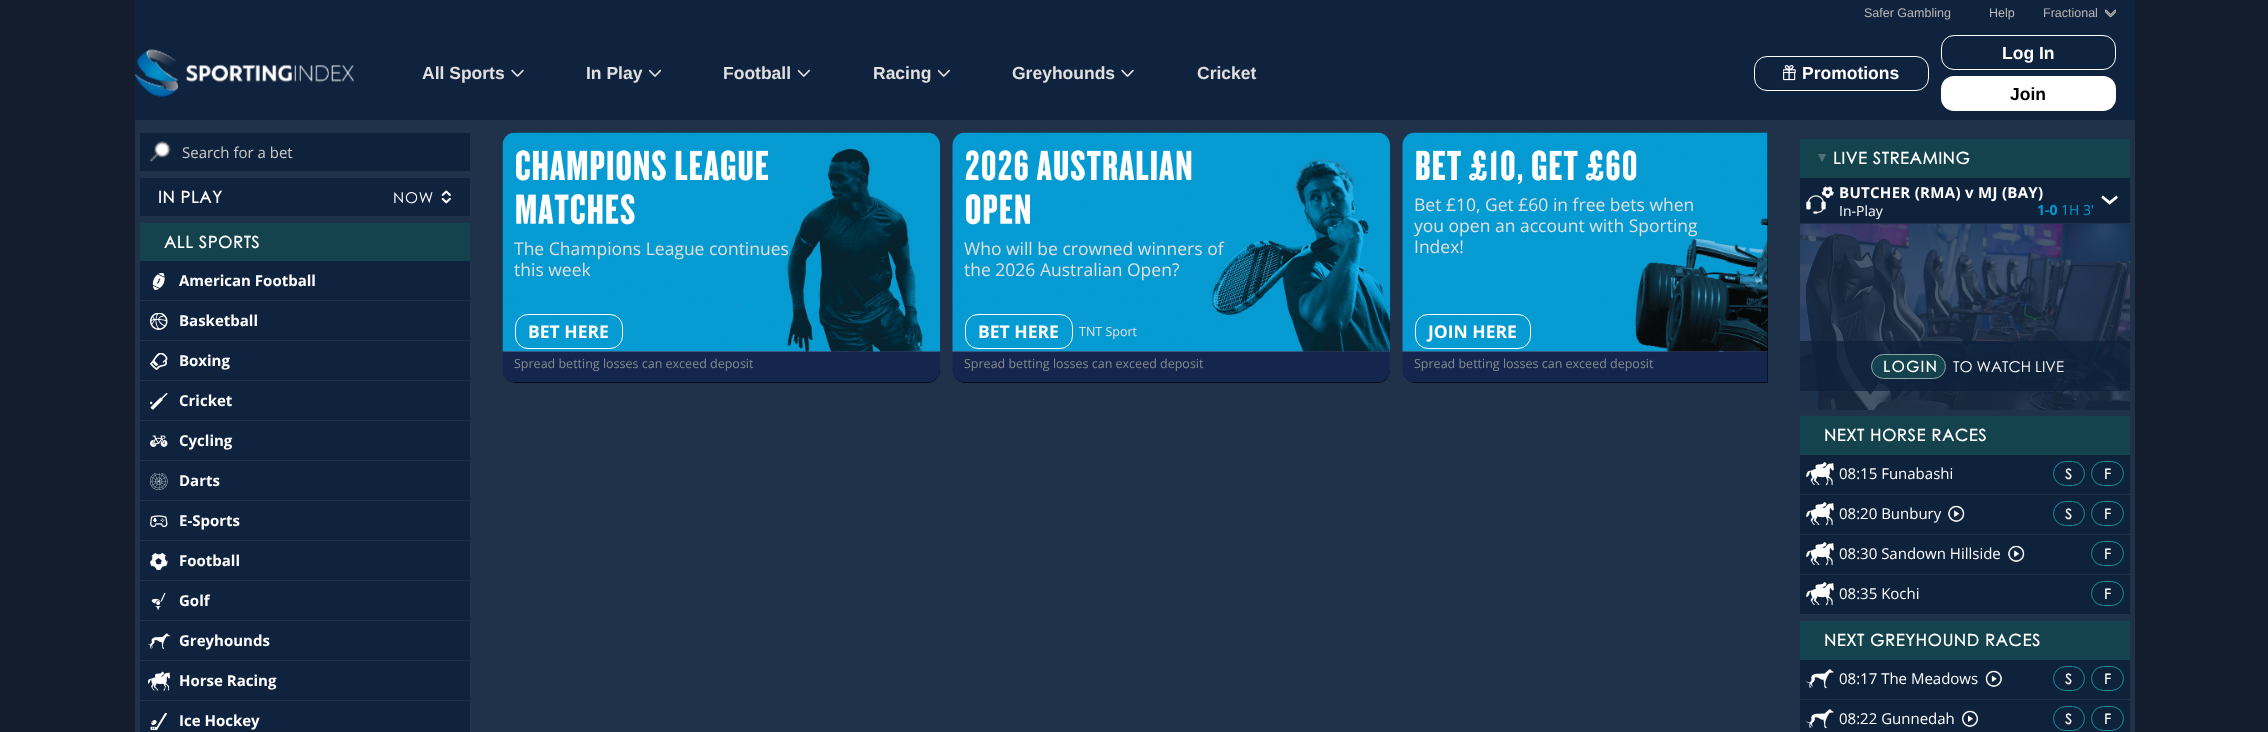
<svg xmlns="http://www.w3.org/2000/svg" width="2268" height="732">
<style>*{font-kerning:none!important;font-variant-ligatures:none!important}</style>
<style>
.a{font:12.5px Liberation Sans;fill:#b8b8b7}
.b{font:bold 17.5px Liberation Sans;fill:#e1e0e0}
.c{font:bold 17.5px Liberation Sans;fill:#fff}
.d{font:bold 17.5px Liberation Sans;fill:#000}
.e{font:15px Open Sans;fill:#ccc}
.f{font:bold 16.25px Century Gothic;letter-spacing:0.8px;fill:#fff}
.g{font:15px Century Gothic;letter-spacing:0.8px;fill:#fff}
.h{font:bold 15px Open Sans;fill:#fff}
.i{font:17.5px Open Sans;fill:#e1e0e0}
.j{font:bold 17.5px Open Sans;fill:#fff}
.k{font:12.5px Open Sans;fill:#868b8d}
.l{font:12.5px Open Sans;fill:#e1e0e0}
.m{font:bold 14px Liberation Sans;letter-spacing:7px;fill:#4f727a}
.n{font:bold 15px Open Sans;letter-spacing:0.3px;fill:#fff}
.o{font:14px Open Sans;fill:#fff}
.p{font:bold 14px Open Sans;fill:#009bd2}
.q{font:14px Open Sans;fill:#009bd2}
.r{font:40px Open Sans;fill:#fff}
.s{font:bold 15px Century Gothic;letter-spacing:1.5px;fill:#fff}
.t{font:15px Century Gothic;fill:#fff}
.u{font:15px Open Sans;fill:#fff}
.v{font:bold 14px Century Gothic;fill:#fff}
</style>
<defs>
<clipPath id="clip1"><path d="M1840 203h120v16H1840z"/></clipPath>
</defs>
<rect width="100%" height="100%" fill="#131d2e"/>
<path fill="#1f324a" d="M135 120h2000v612H135z"/>
<path fill="#0f233e" d="M135 0h2000v120H135z"/>
<image href="1.png" x="2105" y="9" width="11" height="9"/>
<image href="2.png" x="134" y="49" width="220" height="48"/>
<image href="3.png" x="511" y="69" width="13" height="8"/>
<image href="4.png" x="649" y="69" width="12" height="8"/>
<image href="5.png" x="798" y="69" width="12" height="8"/>
<image href="5.png" x="938" y="69" width="12" height="8"/>
<image href="3.png" x="1121" y="69" width="13" height="8"/>
<rect fill="none" stroke="#fff" x="1754.5" y="56.5" width="174" height="34" rx="12.5"/>
<image href="6.png" x="1783" y="65" width="13" height="16"/>
<rect fill="none" stroke="#fff" x="1941.5" y="35.5" width="174" height="34" rx="12.5"/>
<rect fill="#fff" x="1941" y="76" width="175" height="35" rx="13"/>
<path fill="#0e223c" d="M140 133h330v38H140z"/>
<image href="7.png" x="149" y="141" width="22" height="21"/>
<path fill="#0f233e" d="M140 178h330v38H140z"/>
<image href="8.png" x="441" y="190" width="10" height="14"/>
<path fill="#14434d" d="M140 223h330v38H140z"/>
<path fill="#0f233e" d="M140 261h330v39H140z"/>
<image href="9.png" x="152" y="273" width="13" height="17"/>
<path fill="#0f233e" d="M140 301h330v39H140z"/>
<image href="10.png" x="150" y="313" width="18" height="17"/>
<path fill="#0f233e" d="M140 341h330v39H140z"/>
<image href="11.png" x="150" y="353" width="18" height="17"/>
<path fill="#0f233e" d="M140 381h330v39H140z"/>
<image href="12.png" x="150" y="393" width="18" height="17"/>
<path fill="#0f233e" d="M140 421h330v39H140z"/>
<image href="13.png" x="150" y="435" width="18" height="12"/>
<path fill="#0f233e" d="M140 461h330v39H140z"/>
<image href="14.png" x="150" y="473" width="18" height="17"/>
<path fill="#0f233e" d="M140 501h330v39H140z"/>
<image href="15.png" x="150" y="515" width="18" height="13"/>
<path fill="#0f233e" d="M140 541h330v39H140z"/>
<image href="16.png" x="150" y="553" width="18" height="17"/>
<path fill="#0f233e" d="M140 581h330v39H140z"/>
<image href="17.png" x="151" y="593" width="15" height="17"/>
<path fill="#0f233e" d="M140 621h330v39H140z"/>
<image href="18.png" x="148" y="633" width="22" height="16"/>
<path fill="#0f233e" d="M140 661h330v39H140z"/>
<image href="19.png" x="148" y="671" width="22" height="20"/>
<path fill="#0f233e" d="M140 701h330v31H140z"/>
<image href="20.png" x="150" y="713" width="17" height="17"/>
<rect fill="#000" x="503" y="133" width="437" height="250" rx="13"/>
<image href="21.png" x="502" y="132" width="438" height="251"/>
<image href="22.png" x="516" y="150" width="252" height="31"/>
<image href="23.png" x="516" y="194" width="119" height="31"/>
<rect fill="none" stroke="#fff" x="515.5" y="314.5" width="107" height="34" rx="12.5"/>
<rect fill="#000" x="953" y="133" width="437" height="250" rx="13"/>
<image href="24.png" x="952" y="132" width="438" height="251"/>
<image href="25.png" x="965" y="150" width="227" height="31"/>
<image href="26.png" x="966" y="194" width="64" height="31"/>
<rect fill="none" stroke="#fff" x="965.5" y="314.5" width="107" height="34" rx="12.5"/>
<path fill="#000" d="M1416 133h352v250h-352c-7 0-13-6-13-13v-224c0-7 6-13 13-13z"/>
<image href="27.png" x="1402" y="132" width="366" height="251"/>
<image href="28.png" x="1416" y="150" width="221" height="34"/>
<rect fill="none" stroke="#fff" x="1415.5" y="314.5" width="115" height="34" rx="12.5"/>
<path fill="#14434d" d="M1800 139h330v39H1800z"/>
<path fill="#0e223c" d="M1800 178h330v232H1800z"/>
<path fill="#1f324a" d="M1800 223h330v1H1800z"/>
<image href="29.png" x="1806" y="186" width="28" height="28"/>
<image href="30.png" x="1800" y="224" width="330" height="186"/>
<path fill="#0e223cbf" d="M1800 341h330v50H1800z"/>
<rect fill="#14434d" stroke="#8aa1a6" x="1871.5" y="354.5" width="74" height="24" rx="12"/>
<path fill="#14434d" d="M1800 416h330v39H1800z"/>
<path fill="#0e223c" d="M1800 455h330v39H1800z"/>
<image href="31.png" x="1806" y="462" width="28" height="24"/>
<rect fill="none" stroke="#168d98" x="2053.5" y="461.5" width="31" height="24" rx="12"/>
<rect fill="none" stroke="#168d98" x="2091.5" y="461.5" width="32" height="24" rx="12"/>
<path fill="#0e223c" d="M1800 495h330v39H1800z"/>
<image href="31.png" x="1806" y="502" width="28" height="24"/>
<image href="32.png" x="1948" y="505" width="17" height="17"/>
<rect fill="none" stroke="#168d98" x="2053.5" y="501.5" width="31" height="24" rx="12"/>
<rect fill="none" stroke="#168d98" x="2091.5" y="501.5" width="32" height="24" rx="12"/>
<path fill="#0e223c" d="M1800 535h330v39H1800z"/>
<image href="31.png" x="1806" y="542" width="28" height="24"/>
<image href="32.png" x="2008" y="545" width="17" height="17"/>
<rect fill="none" stroke="#168d98" x="2091.5" y="541.5" width="32" height="24" rx="12"/>
<path fill="#0e223c" d="M1800 575h330v39H1800z"/>
<image href="31.png" x="1806" y="582" width="28" height="24"/>
<rect fill="none" stroke="#168d98" x="2091.5" y="581.5" width="32" height="24" rx="12"/>
<path fill="#14434d" d="M1800 621h330v39H1800z"/>
<path fill="#0e223c" d="M1800 660h330v39H1800z"/>
<image href="33.png" x="1806" y="669" width="28" height="20"/>
<image href="34.png" x="1985" y="670" width="17" height="17"/>
<rect fill="none" stroke="#168d98" x="2053.5" y="666.5" width="31" height="24" rx="12"/>
<rect fill="none" stroke="#168d98" x="2091.5" y="666.5" width="32" height="24" rx="12"/>
<path fill="#0e223c" d="M1800 700h330v32H1800z"/>
<image href="33.png" x="1806" y="709" width="28" height="20"/>
<image href="35.png" x="1962" y="710" width="16" height="17"/>
<rect fill="none" stroke="#168d98" x="2053.5" y="706.5" width="31" height="24" rx="12"/>
<rect fill="none" stroke="#168d98" x="2091.5" y="706.5" width="32" height="24" rx="12"/>
<text class="a" x="1864" y="17">Safer Gambling</text>
<text class="a" x="1989" y="17">Help</text>
<text class="a" x="2043" y="17">Fractional</text>
<text class="b" x="422" y="79">All Sports</text>
<text class="b" x="586" y="79">In Play</text>
<text class="b" x="723" y="79">Football</text>
<text class="b" x="873" y="79">Racing</text>
<text class="b" x="1012" y="79">Greyhounds</text>
<text class="b" x="1197" y="79">Cricket</text>
<text class="c" x="1802" y="79">Promotions</text>
<text class="c" x="2002" y="59">Log In</text>
<text class="d" x="2010" y="100">Join</text>
<text class="e" x="182" y="158">Search for a bet</text>
<text class="f" x="158" y="203">IN PLAY</text>
<text class="g" x="393" y="203">NOW</text>
<text class="f" x="164" y="248">ALL SPORTS</text>
<text class="h" x="179" y="286">American Football</text>
<text class="h" x="179" y="326">Basketball</text>
<text class="h" x="179" y="366">Boxing</text>
<text class="h" x="179" y="406">Cricket</text>
<text class="h" x="179" y="446">Cycling</text>
<text class="h" x="179" y="486">Darts</text>
<text class="h" x="179" y="526">E-Sports</text>
<text class="h" x="179" y="566">Football</text>
<text class="h" x="179" y="606">Golf</text>
<text class="h" x="179" y="646">Greyhounds</text>
<text class="h" x="179" y="686">Horse Racing</text>
<text class="h" x="179" y="726">Ice Hockey</text>
<text class="i" x="514" y="255">The Champions League continues</text>
<text class="i" x="514" y="276">this week</text>
<text class="j" x="528" y="338">BET HERE</text>
<text class="k" x="514" y="368">Spread betting losses can exceed deposit</text>
<text class="i" x="964" y="255">Who will be crowned winners of</text>
<text class="i" x="964" y="276">the 2026 Australian Open?</text>
<text class="j" x="978" y="338">BET HERE</text>
<text class="l" x="1079" y="336">TNT Sport</text>
<text class="k" x="964" y="368">Spread betting losses can exceed deposit</text>
<text class="i" x="1414" y="211">Bet £10, Get £60 in free bets when</text>
<text class="i" x="1414" y="232">you open an account with Sporting</text>
<text class="i" x="1414" y="253">Index!</text>
<text class="j" x="1428" y="338">JOIN HERE</text>
<text class="k" x="1414" y="368">Spread betting losses can exceed deposit</text>
<text class="m" x="1829" y="154" transform="rotate(180 1829 154)">▲︎</text>
<text class="f" x="1833" y="164">LIVE STREAMING</text>
<text class="n" x="1839" y="198">BUTCHER (RMA) v MJ (BAY)</text>
<g clip-path="url(#clip1)">
<text class="o" x="1839" y="216">In-Play</text>
</g>
<text class="p" x="2037" y="215">1-0</text>
<text class="q" x="2061" y="215">1H 3'</text>
<text class="r" x="2099" y="194" transform="rotate(90 2099 194)">›</text>
<text class="s" x="1883" y="372">LOGIN</text>
<text class="t" x="1953" y="372">TO WATCH LIVE</text>
<text class="f" x="1824" y="441">NEXT HORSE RACES</text>
<text class="u" x="1839" y="479">08:15 Funabashi</text>
<text class="v" x="2065" y="479">S</text>
<text class="v" x="2104" y="479">F</text>
<text class="u" x="1839" y="519">08:20 Bunbury</text>
<text class="v" x="2065" y="519">S</text>
<text class="v" x="2104" y="519">F</text>
<text class="u" x="1839" y="559">08:30 Sandown Hillside</text>
<text class="v" x="2104" y="559">F</text>
<text class="u" x="1839" y="599">08:35 Kochi</text>
<text class="v" x="2104" y="599">F</text>
<text class="f" x="1824" y="646">NEXT GREYHOUND RACES</text>
<text class="u" x="1839" y="684">08:17 The Meadows</text>
<text class="v" x="2065" y="684">S</text>
<text class="v" x="2104" y="684">F</text>
<text class="u" x="1839" y="724">08:22 Gunnedah</text>
<text class="v" x="2065" y="724">S</text>
<text class="v" x="2104" y="724">F</text>
</svg>
